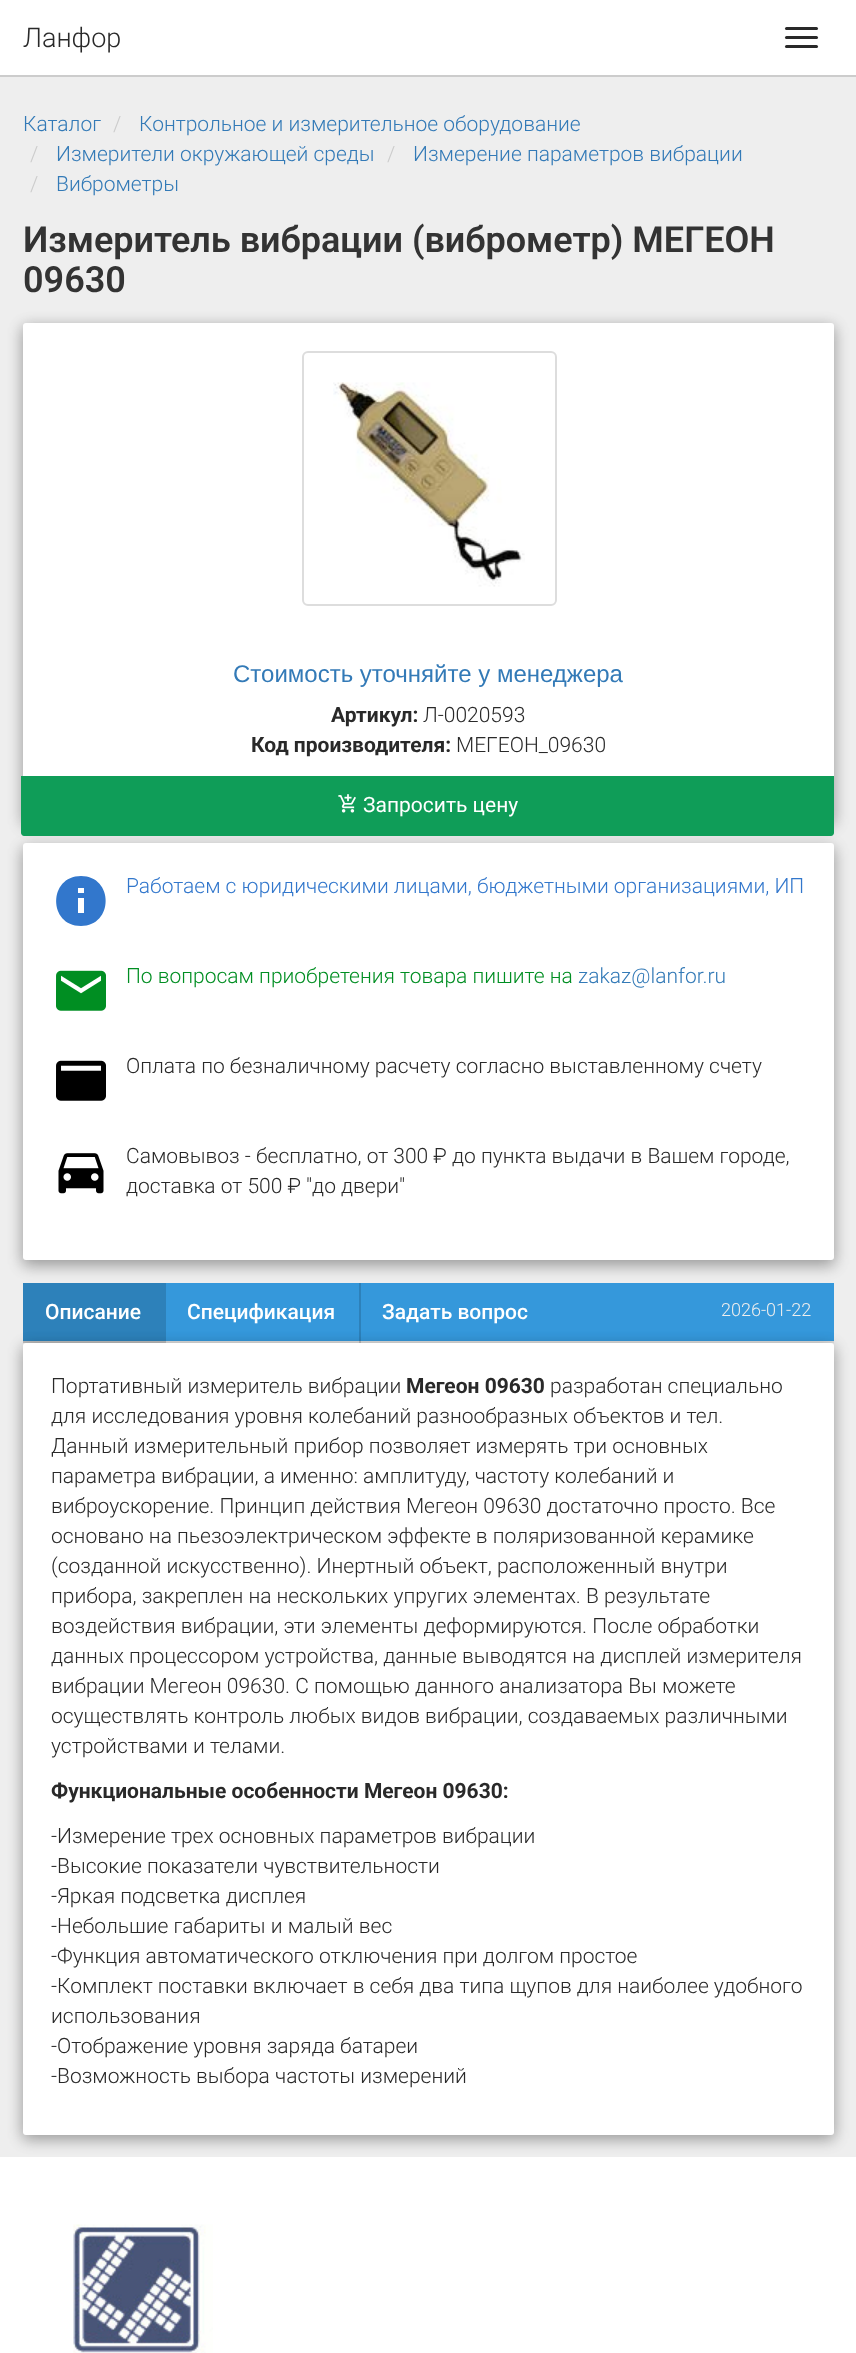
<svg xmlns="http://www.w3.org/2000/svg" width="856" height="2353">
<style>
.a{font:300 27px Roboto;fill:#292929}
.b{font:300 21px Roboto;fill:#337ab7}
.c{font:300 21px Roboto;fill:#ccc}
.d{font:600 36px Roboto;fill:#333}
.e{font:24px Liberation Sans;fill:#337ab7}
.f{font:bold 21px Roboto;fill:#292929}
.g{font:300 21px Roboto;fill:#292929}
.h{font:21px Roboto;fill:#fff}
.i{font:300 21px Roboto;fill:#3277cc}
.j{font:300 21px Roboto;fill:#008e22}
.k{font:500 21px Roboto;fill:#fff}
.l{font:300 18px Roboto;fill:#eee}
</style>
<rect width="100%" height="100%" fill="#eee"/>
<path fill="#fff" d="M0 0h856v75H0z"/>
<path fill="#ccc" d="M0 75h856v2H0z"/>
<rect fill="#292929" x="785" y="27" width="33" height="3" rx="1.5"/>
<rect fill="#292929" x="785" y="36" width="33" height="3" rx="1.5"/>
<rect fill="#292929" x="785" y="45" width="33" height="3" rx="1.5"/>
<rect fill="#00000029" filter="blur(7.5px)" x="23" y="327" width="811" height="498" rx="3"/>
<rect fill="#0000003b" filter="blur(7.5px)" x="23" y="327" width="811" height="498" rx="3"/>
<rect fill="#fff" x="23" y="323" width="811" height="498" rx="3"/>
<rect fill="none" stroke="#ddd" stroke-width="2" x="303" y="352" width="253" height="253" rx="5"/>
<image href="1.png" x="333" y="382" width="192" height="205"/>
<rect fill="#00000029" filter="blur(7.5px)" x="23" y="848" width="811" height="417" rx="3"/>
<rect fill="#0000003b" filter="blur(7.5px)" x="23" y="848" width="811" height="417" rx="3"/>
<path fill="#0f9d58" d="M21 776h813v57c0 1.5-1.5 3-3 3h-807c-1.5 0-3-1.5-3-3z"/>
<image href="2.png" x="338" y="794" width="18" height="19"/>
<rect fill="#fff" x="23" y="843" width="811" height="417" rx="3"/>
<path fill="#3277cc" d="M81 876c-33 0-33 50 0 50c33 0 33-50 0-50zm3 37h-6v-15h6zm0-20h-6v-5h6z"/>
<image href="3.png" x="56" y="970" width="50" height="41"/>
<image href="4.png" x="56" y="1060" width="50" height="41"/>
<image href="5.png" x="58" y="1153" width="46" height="41"/>
<path fill="#3598db" d="M23 1283h811v58H23z"/>
<path fill="#ddd" d="M23 1341h811v2H23z"/>
<path fill="#fff" d="M0 2157h856v196H0z"/>
<rect fill="#00000029" filter="blur(7.5px)" x="23" y="1347" width="811" height="792" rx="3"/>
<rect fill="#0000003b" filter="blur(7.5px)" x="23" y="1347" width="811" height="792" rx="3"/>
<path fill="#00000026" d="M23 1283h141v60H23z"/>
<path fill="#00000026" d="M164 1283h2v60H164z"/>
<path fill="#00000026" d="M359 1283h2v60H359z"/>
<rect fill="#fff" x="23" y="1343" width="811" height="792" rx="3"/>
<image href="6.png" x="73" y="2224" width="140" height="129"/>
<text class="a" x="23" y="47">Ланфор</text>
<text class="b" x="23" y="131">Каталог</text>
<text class="c" x="113" y="131">/</text>
<text class="b" x="139" y="131">Контрольное и измерительное оборудование</text>
<text class="c" x="30" y="161">/</text>
<text class="b" x="56" y="161">Измерители окружающей среды</text>
<text class="c" x="387" y="161">/</text>
<text class="b" x="413" y="161">Измерение параметров вибрации</text>
<text class="c" x="30" y="191">/</text>
<text class="b" x="56" y="191">Виброметры</text>
<text class="d" x="23" y="252">Измеритель вибрации (виброметр) МЕГЕОН</text>
<text class="d" x="23" y="292">09630</text>
<text class="e" x="233" y="682">Стоимость уточняйте у менеджера</text>
<text class="f" x="331" y="722">Артикул:</text>
<text class="g" x="423" y="722">Л-0020593</text>
<text class="f" x="251" y="752">Код производителя:</text>
<text class="g" x="456" y="752">МЕГЕОН_09630</text>
<text class="h" x="363" y="812">Запросить цену</text>
<text class="i" x="126" y="893">Работаем с юридическими лицами, бюджетными организациями, ИП</text>
<text class="j" x="126" y="983">По вопросам приобретения товара пишите на</text>
<text class="b" x="578" y="983">zakaz@lanfor.ru</text>
<text class="g" x="126" y="1073">Оплата по безналичному расчету согласно выставленному счету</text>
<text class="g" x="126" y="1163">Самовывоз - бесплатно, от 300 ₽ до пункта выдачи в Вашем городе,</text>
<text class="g" x="126" y="1193">доставка от 500 ₽ "до двери"</text>
<text class="k" x="45" y="1319">Описание</text>
<text class="k" x="187" y="1319">Спецификация</text>
<text class="k" x="382" y="1319">Задать вопрос</text>
<text class="l" x="721" y="1316">2026-01-22</text>
<text class="g" x="51" y="1393">Портативный измеритель вибрации</text>
<text class="f" x="406" y="1393">Мегеон 09630</text>
<text class="g" x="550" y="1393">разработан специально</text>
<text class="g" x="51" y="1423">для исследования уровня колебаний разнообразных объектов и тел.</text>
<text class="g" x="51" y="1453">Данный измерительный прибор позволяет измерять три основных</text>
<text class="g" x="51" y="1483">параметра вибрации, а именно: амплитуду, частоту колебаний и</text>
<text class="g" x="51" y="1513">виброускорение. Принцип действия Мегеон 09630 достаточно просто. Все</text>
<text class="g" x="51" y="1543">основано на пьезоэлектрическом эффекте в поляризованной керамике</text>
<text class="g" x="51" y="1573">(созданной искусственно). Инертный объект, расположенный внутри</text>
<text class="g" x="51" y="1603">прибора, закреплен на нескольких упругих элементах. В результате</text>
<text class="g" x="51" y="1633">воздействия вибрации, эти элементы деформируются. После обработки</text>
<text class="g" x="51" y="1663">данных процессором устройства, данные выводятся на дисплей измерителя</text>
<text class="g" x="51" y="1693">вибрации Мегеон 09630. С помощью данного анализатора Вы можете</text>
<text class="g" x="51" y="1723">осуществлять контроль любых видов вибрации, создаваемых различными</text>
<text class="g" x="51" y="1753">устройствами и телами.</text>
<text class="f" x="51" y="1798">Функциональные особенности Мегеон 09630:</text>
<text class="g" x="51" y="1843">-Измерение трех основных параметров вибрации</text>
<text class="g" x="51" y="1873">-Высокие показатели чувствительности</text>
<text class="g" x="51" y="1903">-Яркая подсветка дисплея</text>
<text class="g" x="51" y="1933">-Небольшие габариты и малый вес</text>
<text class="g" x="51" y="1963">-Функция автоматического отключения при долгом простое</text>
<text class="g" x="51" y="1993">-Комплект поставки включает в себя два типа щупов для наиболее удобного</text>
<text class="g" x="51" y="2023">использования</text>
<text class="g" x="51" y="2053">-Отображение уровня заряда батареи</text>
<text class="g" x="51" y="2083">-Возможность выбора частоты измерений</text>
</svg>
